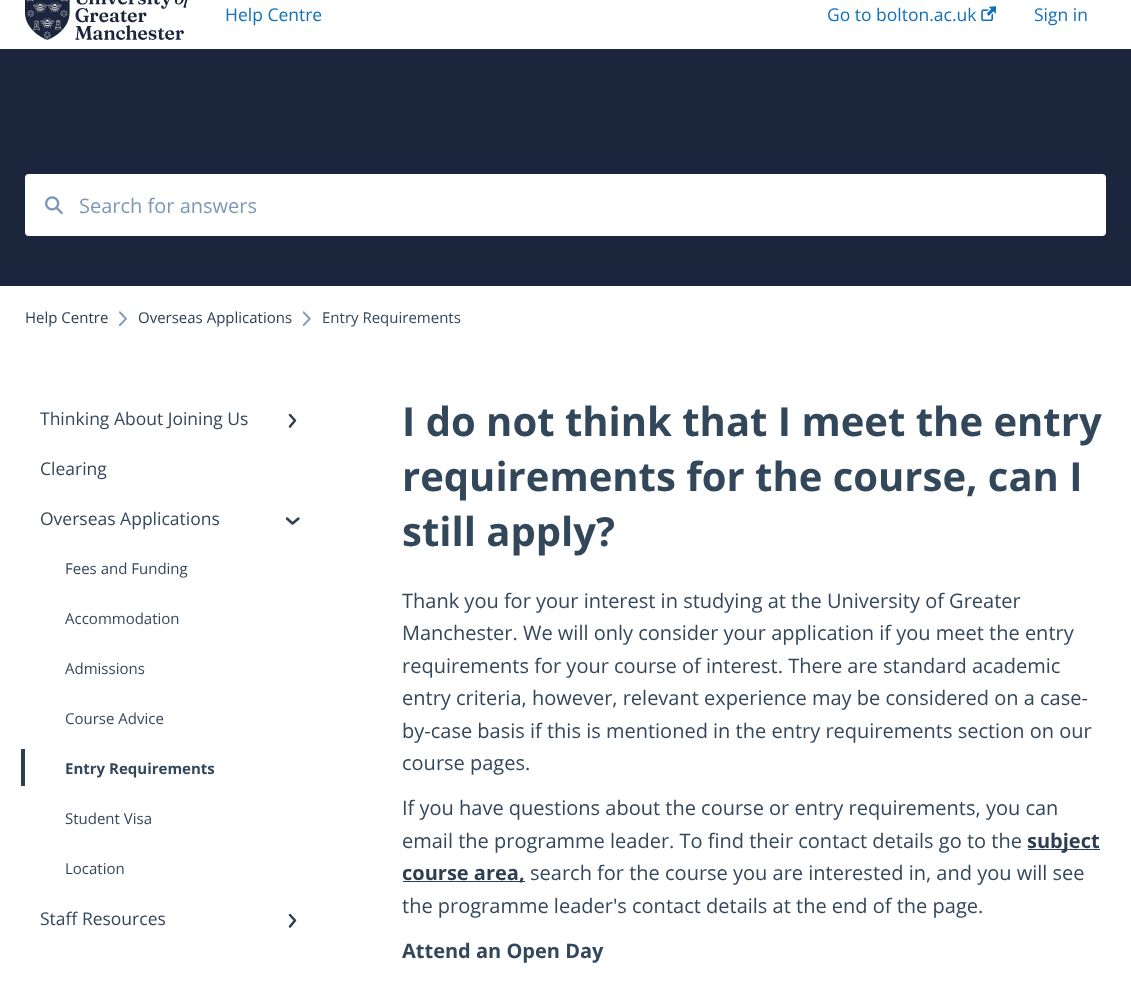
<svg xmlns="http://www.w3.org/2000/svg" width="1131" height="988">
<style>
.a{font:17.5px Open Sans;fill:#106fbd}
.b{font:20px Open Sans;fill:#7c98b6}
.c{font:15px Open Sans;fill:#2d3e50}
.d{font:15px Open Sans;fill:#33475b}
.e{font:17.5px Open Sans;fill:#33475b}
.f{font:bold 15px Open Sans;fill:#33475b}
.g{font:bold 40px Open Sans;fill:#33475b}
.h{font:20px Open Sans;fill:#33475b}
.i{font:bold 20px Open Sans;fill:#2d3e50}
.j{font:bold 20px Open Sans;fill:#33475b}
</style>
<rect width="100%" height="100%" fill="#fff"/>
<image href="1.png" x="25" y="0" width="163" height="40"/>
<image href="2.png" x="981" y="6" width="15" height="15"/>
<path fill="#1b263d" d="M0 49h1131v237H0z"/>
<rect fill="#fff" x="25" y="174" width="1081" height="62" rx="4"/>
<image href="3.png" x="45" y="196" width="18" height="19"/>
<image href="4.png" x="119" y="311" width="8" height="15"/>
<image href="5.png" x="303" y="311" width="8" height="15"/>
<path fill="none" stroke="#2d3e50" stroke-width="2.5" stroke-linecap="round" stroke-linejoin="round" d="M290 415l5 5.5l-5 6"/>
<path fill="none" stroke="#2d3e50" stroke-width="2.5" stroke-linecap="round" stroke-linejoin="round" d="M298.5 518.5l-6 5l-5.5-5"/>
<path fill="#2d3e50" d="M21 749h4v37H21z"/>
<path fill="none" stroke="#2d3e50" stroke-width="2.5" stroke-linecap="round" stroke-linejoin="round" d="M290 915l5 5.5l-5 6"/>
<path fill="#2d3e50" d="M1028 849h72v1H1028z"/>
<path fill="#2d3e50" d="M403 881h122v1H403z"/>
<text class="a" x="225" y="21">Help Centre</text>
<text class="a" x="827" y="21">Go to bolton.ac.uk</text>
<text class="a" x="1034" y="21">Sign in</text>
<text class="b" x="79" y="213">Search for answers</text>
<text class="c" x="25" y="323">Help Centre</text>
<text class="c" x="138" y="323">Overseas Applications</text>
<text class="d" x="322" y="323">Entry Requirements</text>
<text class="e" x="40" y="425">Thinking About Joining Us</text>
<text class="e" x="40" y="475">Clearing</text>
<text class="e" x="40" y="525">Overseas Applications</text>
<text class="d" x="65" y="574">Fees and Funding</text>
<text class="d" x="65" y="624">Accommodation</text>
<text class="d" x="65" y="674">Admissions</text>
<text class="d" x="65" y="724">Course Advice</text>
<text class="f" x="65" y="774">Entry Requirements</text>
<text class="d" x="65" y="824">Student Visa</text>
<text class="d" x="65" y="874">Location</text>
<text class="e" x="40" y="925">Staff Resources</text>
<text class="g" x="402" y="436">I do not think that I meet the entry</text>
<text class="g" x="402" y="491">requirements for the course, can I</text>
<text class="g" x="402" y="546">still apply?</text>
<text class="h" x="402" y="608">Thank you for your interest in studying at the University of Greater</text>
<text class="h" x="402" y="640">Manchester. We will only consider your application if you meet the entry</text>
<text class="h" x="402" y="673">requirements for your course of interest. There are standard academic</text>
<text class="h" x="402" y="705">entry criteria, however, relevant experience may be considered on a case-</text>
<text class="h" x="402" y="738">by-case basis if this is mentioned in the entry requirements section on our</text>
<text class="h" x="402" y="770">course pages.</text>
<text class="h" x="402" y="815">If you have questions about the course or entry requirements, you can</text>
<text class="h" x="402" y="848">email the programme leader. To find their contact details go to the</text>
<text class="i" x="1027" y="848">subject</text>
<text class="i" x="402" y="880">course area,</text>
<text class="h" x="530" y="880">search for the course you are interested in, and you will see</text>
<text class="h" x="402" y="913">the programme leader's contact details at the end of the page.</text>
<text class="j" x="402" y="958">Attend an Open Day</text>
</svg>
